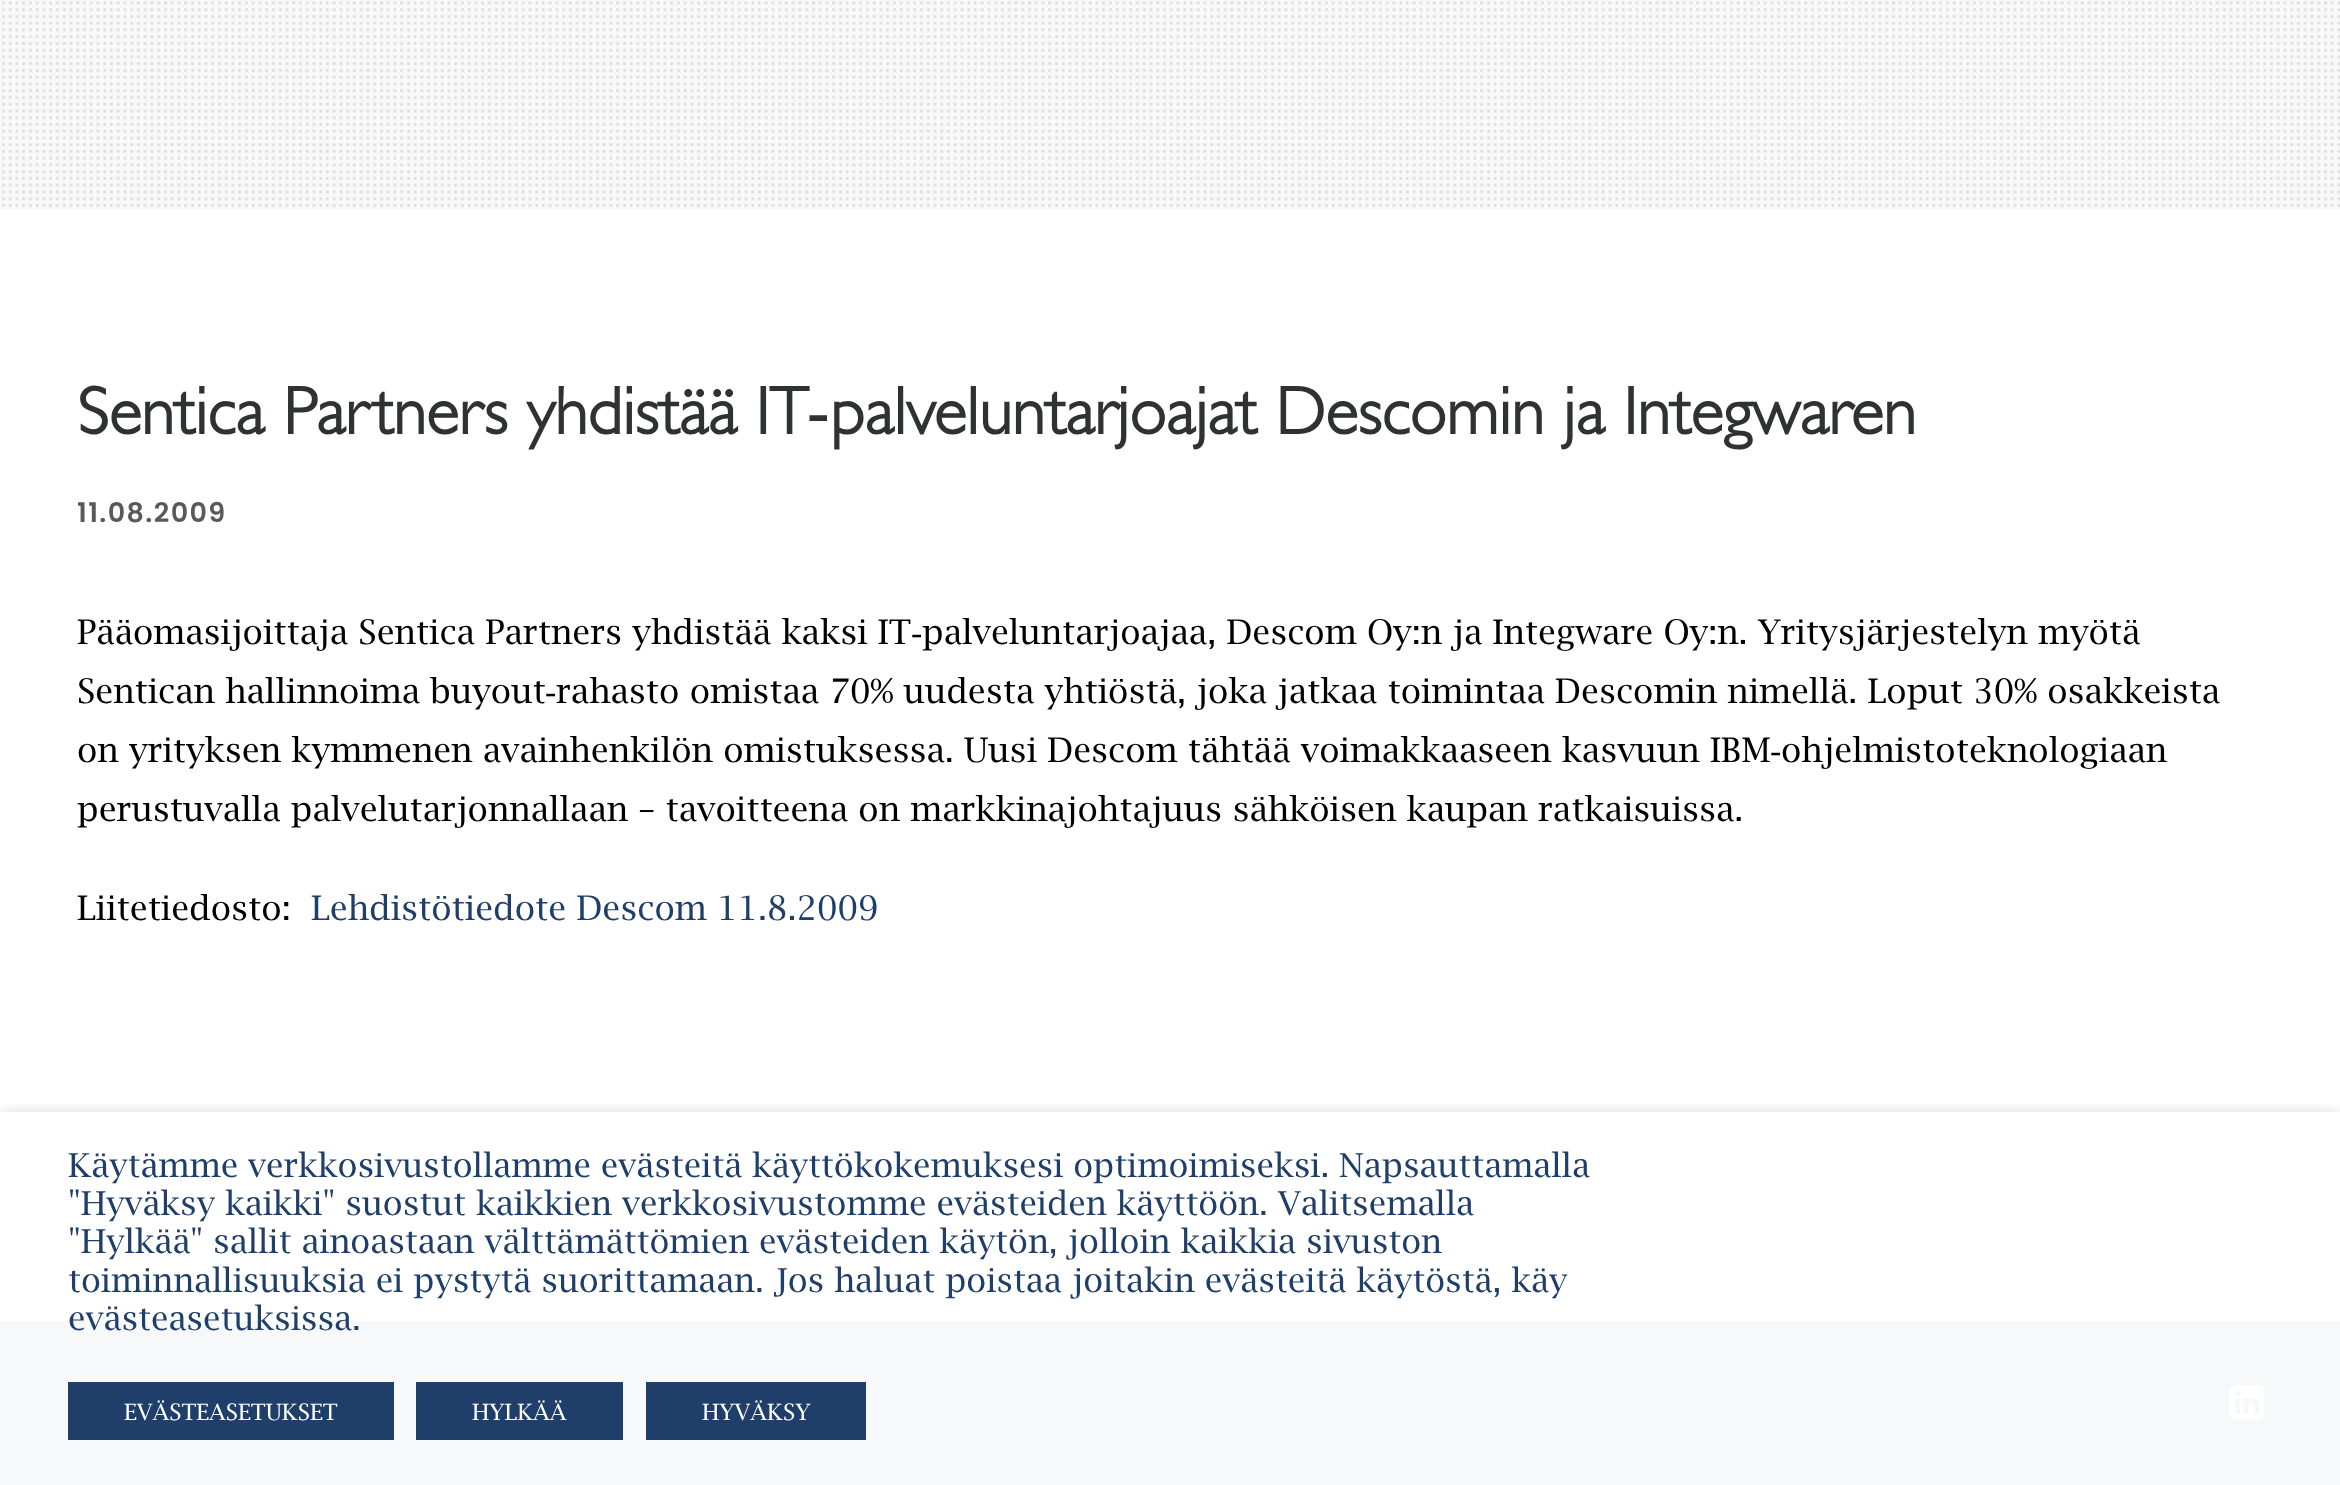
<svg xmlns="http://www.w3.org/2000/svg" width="2340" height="1485">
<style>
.a{font:bold 67.5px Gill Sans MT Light;fill:#303133}
.b{font:bold 67.5px Liberation Serif;fill:#303133}
.c{font:600 27px Poppins;letter-spacing:1.4px;fill:#595959}
.d{font:33.75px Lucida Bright;fill:#000}
.e{font:33.75px Liberation Serif;fill:#000}
.f{font:33.75px Lucida Bright;fill:#1f3f6a}
.g{font:33px Lucida Bright;fill:#1f3f6a}
.h{font:22.5px Lucida Bright;fill:#fff}
</style>
<defs>
<clipPath id="clip1"><path d="M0 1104h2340v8H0z"/></clipPath>
</defs>
<rect width="100%" height="100%" fill="#f7f7f7"/>
<image href="1.png" x="2" y="1" width="2338" height="208"/>
<path fill="#fff" d="M0 209h2340v1112H0z"/>
<path fill="#122845" d="M0 1321h2340v164H0z"/>
<image href="2.png" x="2229" y="1385" width="36" height="35"/>
<g clip-path="url(#clip1)">
<path fill="#00000080" filter="blur(11px)" d="M0 1123h2340v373H0z"/>
</g>
<path fill="#fffffff7" d="M0 1321h2340v164H0z"/>
<path fill="#1f3f6a" d="M68 1382h326v58H68z"/>
<path fill="#1f3f6a" d="M416 1382h207v58H416z"/>
<path fill="#1f3f6a" d="M646 1382h220v58H646z"/>
<text class="a" x="77" y="434">Sentica Partners yhdistää IT</text>
<text class="b" x="807" y="434">‐</text>
<text class="a" x="830" y="434">palveluntarjoajat Descomin ja Integwaren</text>
<text class="c" x="77" y="522">11.08.2009</text>
<text class="d" x="77" y="644">Pääomasijoittaja Sentica Partners yhdistää kaksi IT</text>
<text class="e" x="911" y="644">‐</text>
<text class="d" x="922" y="644">palveluntarjoajaa, Descom Oy:n ja Integware Oy:n. Yritysjärjestelyn myötä</text>
<text class="d" x="77" y="703">Sentican hallinnoima buyout</text>
<text class="e" x="545" y="703">‐</text>
<text class="d" x="556" y="703">rahasto omistaa 70% uudesta yhtiöstä, joka jatkaa toimintaa Descomin nimellä. Loput 30% osakkeista</text>
<text class="d" x="77" y="762">on yrityksen kymmenen avainhenkilön omistuksessa. Uusi Descom tähtää voimakkaaseen kasvuun IBM</text>
<text class="e" x="1770" y="762">‐</text>
<text class="d" x="1781" y="762">ohjelmistoteknologiaan</text>
<text class="d" x="77" y="821">perustuvalla palvelutarjonnallaan – tavoitteena on markkinajohtajuus sähköisen kaupan ratkaisuissa.</text>
<text class="d" x="77" y="920">Liitetiedosto:</text>
<text class="f" x="311" y="920">Lehdistötiedote Descom 11.8.2009</text>
<text class="g" x="68" y="1177" word-spacing="-0.25">Käytämme verkkosivustollamme evästeitä käyttökokemuksesi optimoimiseksi. Napsauttamalla</text>
<text class="g" x="68" y="1215">"Hyväksy kaikki" suostut kaikkien verkkosivustomme evästeiden käyttöön. Valitsemalla</text>
<text class="g" x="68" y="1253">"Hylkää" sallit ainoastaan välttämättömien evästeiden käytön, jolloin kaikkia sivuston</text>
<text class="g" x="68" y="1292">toiminnallisuuksia ei pystytä suorittamaan. Jos haluat poistaa joitakin evästeitä käytöstä, käy</text>
<text class="g" x="68" y="1330">evästeasetuksissa.</text>
<text class="h" x="124" y="1420">EVÄSTEASETUKSET</text>
<text class="h" x="472" y="1420">HYLKÄÄ</text>
<text class="h" x="702" y="1420">HYVÄKSY</text>
</svg>
